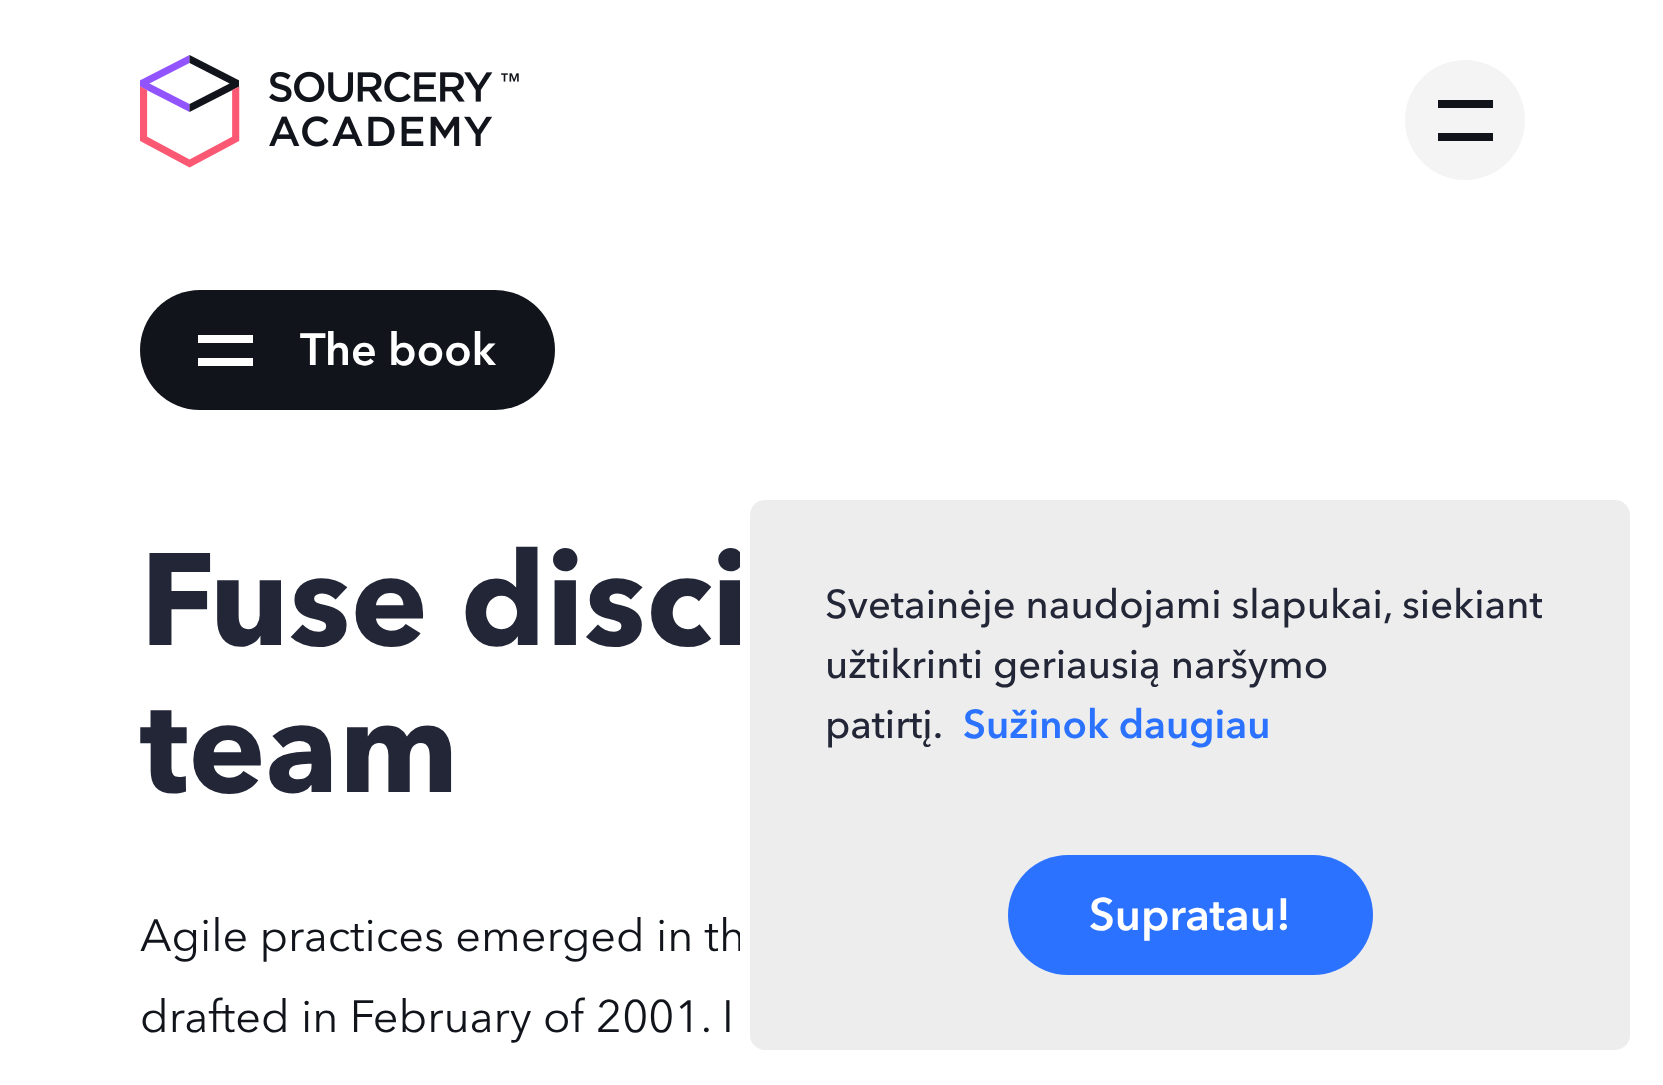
<svg xmlns="http://www.w3.org/2000/svg" width="1663" height="1085">
<style>
.a{font:bold 45px 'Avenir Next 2';fill:#fff}
.b{font:bold 130px Avenir Next;fill:#222636}
.c{font:45px Avenir Next;fill:#12141c}
.d{font:500 40px Avenir Next;fill:#222636}
.e{font:bold 40px 'Avenir Next 2';fill:#2a72ff}
</style>
<rect width="100%" height="100%" fill="#fff"/>
<image href="1.png" x="140" y="55" width="379" height="113"/>
<circle fill="#f4f4f5" cx="1465" cy="120" r="60"/>
<path fill="#12141c" d="M1438 100h55v8H1438z"/>
<path fill="#12141c" d="M1438 133h55v8H1438z"/>
<rect fill="#12141c" x="140" y="290" width="415" height="120" rx="60"/>
<path fill="#fff" d="M198 335h55v8H198z"/>
<path fill="#fff" d="M198 358h55v8H198z"/>
<text class="a" x="300" y="365">The book</text>
<text class="b" x="140" y="645">Fuse disci</text>
<text class="b" x="140" y="792">team</text>
<text class="c" x="140" y="951">Agile practices emerged in th</text>
<text class="c" x="140" y="1032">drafted in February of 2001. I</text>
<rect fill="#ededee" stroke="#fff" stroke-width="10" x="745" y="495" width="890" height="560" rx="20"/>
<text class="d" x="825" y="618">Svetainėje naudojami slapukai, siekiant</text>
<text class="d" x="825" y="678">užtikrinti geriausią naršymo</text>
<text class="d" x="825" y="738">patirtį.</text>
<text class="e" x="963" y="738">Sužinok daugiau</text>
<rect fill="#2a72ff" x="1008" y="855" width="365" height="120" rx="60"/>
<text class="a" x="1089" y="930">Supratau!</text>
</svg>
